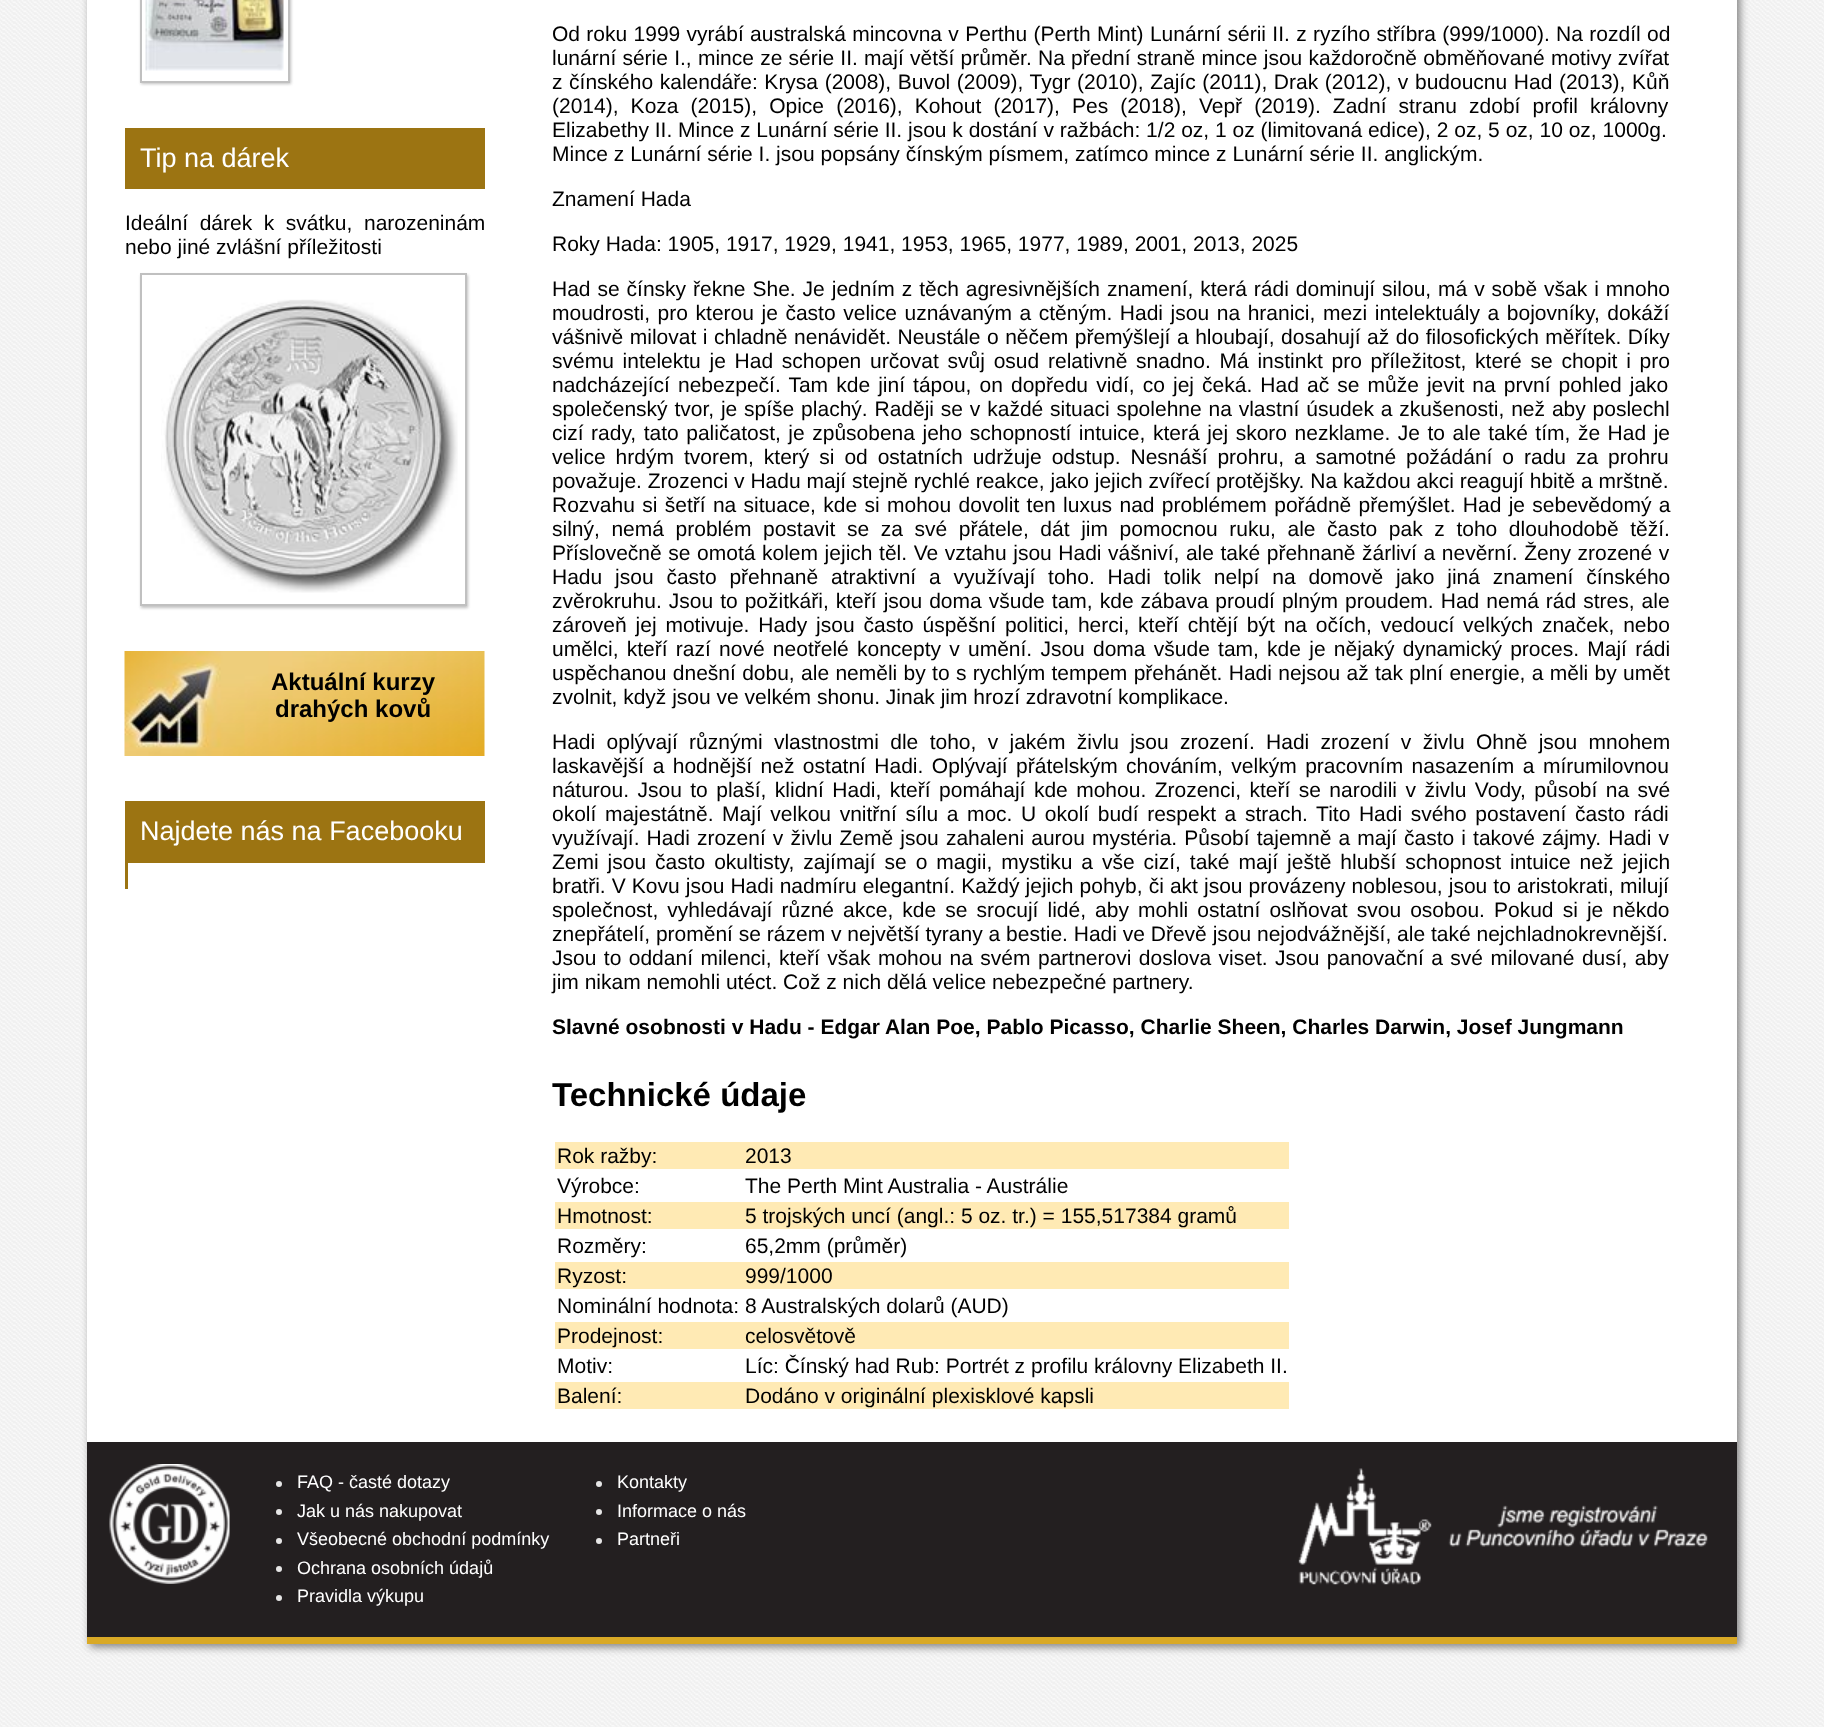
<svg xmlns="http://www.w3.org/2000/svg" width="1824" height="1727">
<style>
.a{font:27px Liberation Sans;fill:#fff}
.b{font:21px Liberation Sans;fill:#000}
.c{font:bold 24px Liberation Sans;fill:#000}
.d{font:bold 21px Liberation Sans;fill:#000}
.e{font:bold 33px Liberation Sans;fill:#000}
.f{font:18px Liberation Sans;fill:#fff}
</style>
<rect width="100%" height="100%" fill="#f0f0f0"/>
<image href="1.png" x="0" y="0" width="1824" height="1727"/>
<path fill="#808080" filter="blur(4px)" d="M90 -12h1650v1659H90z"/>
<path fill="#d9a926" d="M87 1637h1650v7H87z"/>
<path fill="#fff" d="M87 0h1650v1442H87z"/>
<path fill="#c0c0c0" filter="blur(1.5px)" d="M141 -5h150v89H141z"/>
<path fill="#fff" stroke="#c0c0c0" stroke-width="2" d="M141 -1h148v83H141z"/>
<image href="2.png" x="145" y="0" width="139" height="71"/>
<path fill="#9c7412" d="M125 128h360v61H125z"/>
<path fill="#c0c0c0" filter="blur(1.5px)" d="M141 275h327v333H141z"/>
<path fill="#fff" stroke="#c0c0c0" stroke-width="2" d="M141 274h325v331H141z"/>
<image href="3.png" x="161" y="299" width="297" height="294"/>
<image href="4.png" x="124" y="651" width="361" height="105"/>
<path fill="#9c7412" d="M125 801h360v62H125z"/>
<path fill="#9c7412" d="M127 863h1v25H127z"/>
<path fill="#9c7412" d="M125 887h3v2H125z"/>
<path fill="#9c7412" d="M125 863h2v25H125z"/>
<path fill="#ffeab4" d="M555 1142h734v27H555z"/>
<path fill="#ffeab4" d="M555 1202h734v27H555z"/>
<path fill="#ffeab4" d="M555 1262h734v27H555z"/>
<path fill="#ffeab4" d="M555 1322h734v27H555z"/>
<path fill="#ffeab4" d="M555 1382h734v27H555z"/>
<path fill="#231f20" d="M87 1442h1650v195H87z"/>
<image href="5.png" x="109" y="1464" width="121" height="120"/>
<circle fill="#e6e6e6" cx="279" cy="1484" r="3"/>
<circle fill="#e6e6e6" cx="279" cy="1512" r="3"/>
<circle fill="#e6e6e6" cx="279" cy="1541" r="3"/>
<circle fill="#e6e6e6" cx="279" cy="1569" r="3"/>
<circle fill="#e6e6e6" cx="279" cy="1598" r="3"/>
<circle fill="#e6e6e6" cx="599" cy="1484" r="3"/>
<circle fill="#e6e6e6" cx="599" cy="1512" r="3"/>
<circle fill="#e6e6e6" cx="599" cy="1541" r="3"/>
<image href="6.png" x="1298" y="1468" width="410" height="117"/>
<text class="a" x="140" y="167">Tip na dárek</text>
<text class="b" x="125" y="230" word-spacing="5.75">Ideální dárek k svátku, narozeninám</text>
<text class="b" x="125" y="254">nebo jiné zvlášní příležitosti</text>
<text class="c" x="271" y="690">Aktuální kurzy</text>
<text class="c" x="275" y="717">drahých kovů</text>
<text class="a" x="140" y="840">Najdete nás na Facebooku</text>
<text class="b" x="552" y="41" word-spacing="0.5">Od roku 1999 vyrábí australská mincovna v Perthu (Perth Mint) Lunární sérii II. z ryzího stříbra (999/1000). Na rozdíl od</text>
<text class="b" x="552" y="65" word-spacing="0.4">lunární série I., mince ze série II. mají větší průměr. Na přední straně mince jsou každoročně obměňované motivy zvířat</text>
<text class="b" x="552" y="89" word-spacing="0.75">z čínského kalendáře: Krysa (2008), Buvol (2009), Tygr (2010), Zajíc (2011), Drak (2012), v budoucnu Had (2013), Kůň</text>
<text class="b" x="552" y="113" word-spacing="6.25">(2014), Koza (2015), Opice (2016), Kohout (2017), Pes (2018), Vepř (2019). Zadní stranu zdobí profil královny</text>
<text class="b" x="552" y="137">Elizabethy II. Mince z Lunární série II. jsou k dostání v ražbách: 1/2 oz, 1 oz (limitovaná edice), 2 oz, 5 oz, 10 oz, 1000g.</text>
<text class="b" x="552" y="161">Mince z Lunární série I. jsou popsány čínským písmem, zatímco mince z Lunární série II. anglickým.</text>
<text class="b" x="552" y="206">Znamení Hada</text>
<text class="b" x="552" y="251">Roky Hada: 1905, 1917, 1929, 1941, 1953, 1965, 1977, 1989, 2001, 2013, 2025</text>
<text class="b" x="552" y="296" word-spacing="1.1">Had se čínsky řekne She. Je jedním z těch agresivnějších znamení, která rádi dominují silou, má v sobě však i mnoho</text>
<text class="b" x="552" y="320" word-spacing="1.75">moudrosti, pro kterou je často velice uznávaným a ctěným. Hadi jsou na hranici, mezi intelektuály a bojovníky, dokáží</text>
<text class="b" x="552" y="344" word-spacing="0.7">vášnivě milovat i chladně nenávidět. Neustále o něčem přemýšlejí a hloubají, dosahují až do filosofických měřítek. Díky</text>
<text class="b" x="552" y="368" word-spacing="2.9">svému intelektu je Had schopen určovat svůj osud relativně snadno. Má instinkt pro příležitost, které se chopit i pro</text>
<text class="b" x="552" y="392" word-spacing="2.25">nadcházející nebezpečí. Tam kde jiní tápou, on dopředu vidí, co jej čeká. Had ač se může jevit na první pohled jako</text>
<text class="b" x="552" y="416" word-spacing="1">společenský tvor, je spíše plachý. Raději se v každé situaci spolehne na vlastní úsudek a zkušenosti, než aby poslechl</text>
<text class="b" x="552" y="440" word-spacing="1.7">cizí rady, tato paličatost, je způsobena jeho schopností intuice, která jej skoro nezklame. Je to ale také tím, že Had je</text>
<text class="b" x="552" y="464" word-spacing="4.1">velice hrdým tvorem, který si od ostatních udržuje odstup. Nesnáší prohru, a samotné požádání o radu za prohru</text>
<text class="b" x="552" y="488">považuje. Zrozenci v Hadu mají stejně rychlé reakce, jako jejich zvířecí protějšky. Na každou akci reagují hbitě a mrštně.</text>
<text class="b" x="552" y="512" word-spacing="1.5">Rozvahu si šetří na situace, kde si mohou dovolit ten luxus nad problémem pořádně přemýšlet. Had je sebevědomý a</text>
<text class="b" x="552" y="536" word-spacing="5.75">silný, nemá problém postavit se za své přátele, dát jim pomocnou ruku, ale často pak z toho dlouhodobě těží.</text>
<text class="b" x="552" y="560" word-spacing="0.75">Příslovečně se omotá kolem jejich těl. Ve vztahu jsou Hadi vášniví, ale také přehnaně žárliví a nevěrní. Ženy zrozené v</text>
<text class="b" x="552" y="584" word-spacing="7">Hadu jsou často přehnaně atraktivní a využívají toho. Hadi tolik nelpí na domově jako jiná znamení čínského</text>
<text class="b" x="552" y="608" word-spacing="1.2">zvěrokruhu. Jsou to požitkáři, kteří jsou doma všude tam, kde zábava proudí plným proudem. Had nemá rád stres, ale</text>
<text class="b" x="552" y="632" word-spacing="3">zároveň jej motivuje. Hady jsou často úspěšní politici, herci, kteří chtějí být na očích, vedoucí velkých značek, nebo</text>
<text class="b" x="552" y="656" word-spacing="2.4">umělci, kteří razí nové neotřelé koncepty v umění. Jsou doma všude tam, kde je nějaký dynamický proces. Mají rádi</text>
<text class="b" x="552" y="680" word-spacing="0.5">uspěchanou dnešní dobu, ale neměli by to s rychlým tempem přehánět. Hadi nejsou až tak plní energie, a měli by umět</text>
<text class="b" x="552" y="704">zvolnit, když jsou ve velkém shonu. Jinak jim hrozí zdravotní komplikace.</text>
<text class="b" x="552" y="749" word-spacing="5.5">Hadi oplývají různými vlastnostmi dle toho, v jakém živlu jsou zrození. Hadi zrození v živlu Ohně jsou mnohem</text>
<text class="b" x="552" y="773" word-spacing="2.6">laskavější a hodnější než ostatní Hadi. Oplývají přátelským chováním, velkým pracovním nasazením a mírumilovnou</text>
<text class="b" x="552" y="797" word-spacing="2.6">náturou. Jsou to plaší, klidní Hadi, kteří pomáhají kde mohou. Zrozenci, kteří se narodili v živlu Vody, působí na své</text>
<text class="b" x="552" y="821" word-spacing="2.75">okolí majestátně. Mají velkou vnitřní sílu a moc. U okolí budí respekt a strach. Tito Hadi svého postavení často rádi</text>
<text class="b" x="552" y="845" word-spacing="1.25">využívají. Hadi zrození v živlu Země jsou zahaleni aurou mystéria. Působí tajemně a mají často i takové zájmy. Hadi v</text>
<text class="b" x="552" y="869" word-spacing="3.1">Zemi jsou často okultisty, zajímají se o magii, mystiku a vše cizí, také mají ještě hlubší schopnost intuice než jejich</text>
<text class="b" x="552" y="893" word-spacing="0.25">bratři. V Kovu jsou Hadi nadmíru elegantní. Každý jejich pohyb, či akt jsou provázeny noblesou, jsou to aristokrati, milují</text>
<text class="b" x="552" y="917" word-spacing="3.25">společnost, vyhledávají různé akce, kde se srocují lidé, aby mohli ostatní oslňovat svou osobou. Pokud si je někdo</text>
<text class="b" x="552" y="941">znepřátelí, promění se rázem v největší tyrany a bestie. Hadi ve Dřevě jsou nejodvážnější, ale také nejchladnokrevnější.</text>
<text class="b" x="552" y="965" word-spacing="1.6">Jsou to oddaní milenci, kteří však mohou na svém partnerovi doslova viset. Jsou panovační a své milované dusí, aby</text>
<text class="b" x="552" y="989">jim nikam nemohli utéct. Což z nich dělá velice nebezpečné partnery.</text>
<text class="d" x="552" y="1034">Slavné osobnosti v Hadu - Edgar Alan Poe, Pablo Picasso, Charlie Sheen, Charles Darwin, Josef Jungmann</text>
<text class="e" x="552" y="1106">Technické údaje</text>
<text class="b" x="557" y="1163">Rok ražby:</text>
<text class="b" x="745" y="1163">2013</text>
<text class="b" x="557" y="1193">Výrobce:</text>
<text class="b" x="745" y="1193">The Perth Mint Australia - Austrálie</text>
<text class="b" x="557" y="1223">Hmotnost:</text>
<text class="b" x="745" y="1223">5 trojských uncí (angl.: 5 oz. tr.) = 155,517384 gramů</text>
<text class="b" x="557" y="1253">Rozměry:</text>
<text class="b" x="745" y="1253">65,2mm (průměr)</text>
<text class="b" x="557" y="1283">Ryzost:</text>
<text class="b" x="745" y="1283">999/1000</text>
<text class="b" x="557" y="1313">Nominální hodnota: 8 Australských dolarů (AUD)</text>
<text class="b" x="557" y="1343">Prodejnost:</text>
<text class="b" x="745" y="1343">celosvětově</text>
<text class="b" x="557" y="1373">Motiv:</text>
<text class="b" x="745" y="1373">Líc: Čínský had Rub: Portrét z profilu královny Elizabeth II.</text>
<text class="b" x="557" y="1403">Balení:</text>
<text class="b" x="745" y="1403">Dodáno v originální plexisklové kapsli</text>
<text class="f" x="297" y="1488">FAQ - časté dotazy</text>
<text class="f" x="297" y="1517">Jak u nás nakupovat</text>
<text class="f" x="297" y="1545">Všeobecné obchodní podmínky</text>
<text class="f" x="297" y="1574">Ochrana osobních údajů</text>
<text class="f" x="297" y="1602">Pravidla výkupu</text>
<text class="f" x="617" y="1488">Kontakty</text>
<text class="f" x="617" y="1517">Informace o nás</text>
<text class="f" x="617" y="1545">Partneři</text>
</svg>
